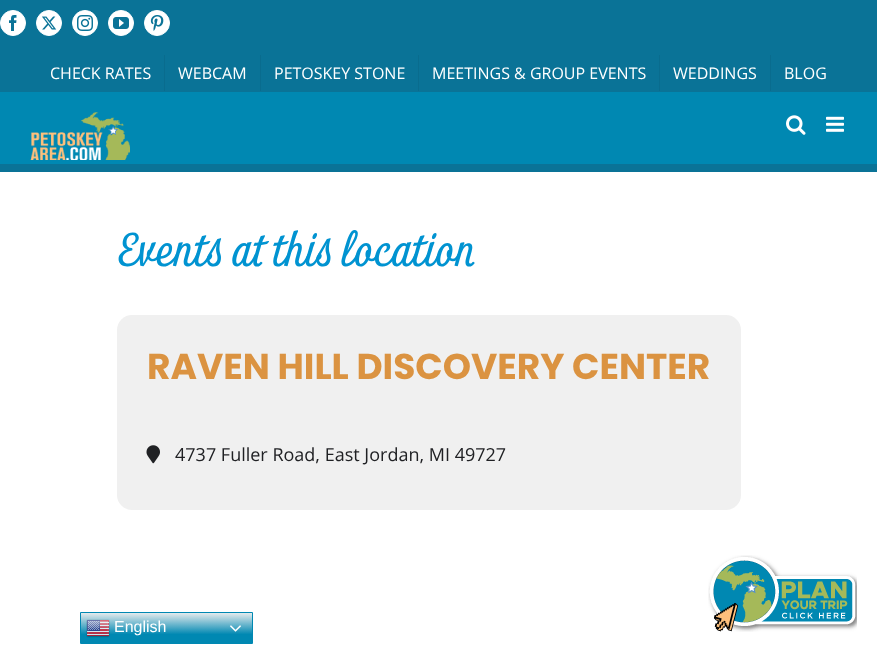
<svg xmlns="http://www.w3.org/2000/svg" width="877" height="664">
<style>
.a{font:16px Open Sans;fill:#fff}
.b{font:48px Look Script;fill:#0093d1}
.c{font:bold 36px Poppins;fill:#db9341}
.d{font:18px Open Sans;fill:#202124}
.e{font:16px Liberation Sans;fill:#fff}
</style>
<defs>
<linearGradient id="g1" gradientUnits="userSpaceOnUse" x1="167" y1="612" x2="167" y2="644"><stop offset="0" stop-color="#efefef"/><stop offset="0.7" stop-color="#0088b2"/></linearGradient>
</defs>
<rect width="100%" height="100%" fill="#fff"/>
<path fill="#0a7397" d="M0 0h877v92H0z"/>
<circle fill="#fff" stroke="#fff" cx="13" cy="23" r="12.5"/>
<image href="1.png" x="9" y="15" width="8" height="16"/>
<circle fill="#fff" stroke="#fff" cx="49" cy="23" r="12.5"/>
<image href="2.png" x="42" y="16" width="15" height="14"/>
<circle fill="#fff" stroke="#fff" cx="85" cy="23" r="12.5"/>
<image href="3.png" x="77" y="15" width="16" height="16"/>
<circle fill="#fff" stroke="#fff" cx="121" cy="23" r="12.5"/>
<image href="4.png" x="113" y="17" width="16" height="12"/>
<circle fill="#fff" stroke="#fff" cx="157" cy="23" r="12.5"/>
<image href="5.png" x="150" y="15" width="14" height="16"/>
<path fill="#096c8e" d="M164 55h1v36H164z"/>
<path fill="#096c8e" d="M260 55h1v36H260z"/>
<path fill="#096c8e" d="M418 55h1v36H418z"/>
<path fill="#096c8e" d="M659 55h1v36H659z"/>
<path fill="#096c8e" d="M770 55h1v36H770z"/>
<path fill="#0088b2" d="M0 92h877v72H0z"/>
<path fill="#0a7397" d="M0 164h877v8H0z"/>
<image href="6.png" x="30" y="112" width="100" height="48"/>
<image href="7.png" x="786" y="115" width="20" height="20"/>
<image href="8.png" x="826" y="116" width="18" height="16"/>
<rect fill="#f0f0f0" x="117" y="315" width="624" height="195" rx="15"/>
<image href="9.png" x="146" y="445" width="14" height="19"/>
<path fill="url(#g1)" d="M81 613h171v30H81z"/>
<path fill="none" stroke="#0088b2" d="M80.5 612.5h172v31H80.5z"/>
<image href="10.png" x="86" y="619" width="24" height="19"/>
<image href="11.png" x="230" y="625" width="11" height="7"/>
<image href="12.png" x="708" y="555" width="149" height="77"/>
<text class="a" x="50" y="79">CHECK RATES</text>
<text class="a" x="178" y="79">WEBCAM</text>
<text class="a" x="274" y="79">PETOSKEY STONE</text>
<text class="a" x="432" y="79">MEETINGS &amp; GROUP EVENTS</text>
<text class="a" x="673" y="79">WEDDINGS</text>
<text class="a" x="784" y="79">BLOG</text>
<text class="b" x="117" y="266">Events at this location</text>
<text class="c" x="147" y="379">RAVEN HILL DISCOVERY CENTER</text>
<text class="d" x="175" y="461">4737 Fuller Road, East Jordan, MI 49727</text>
<text class="e" x="114" y="632">English</text>
</svg>
